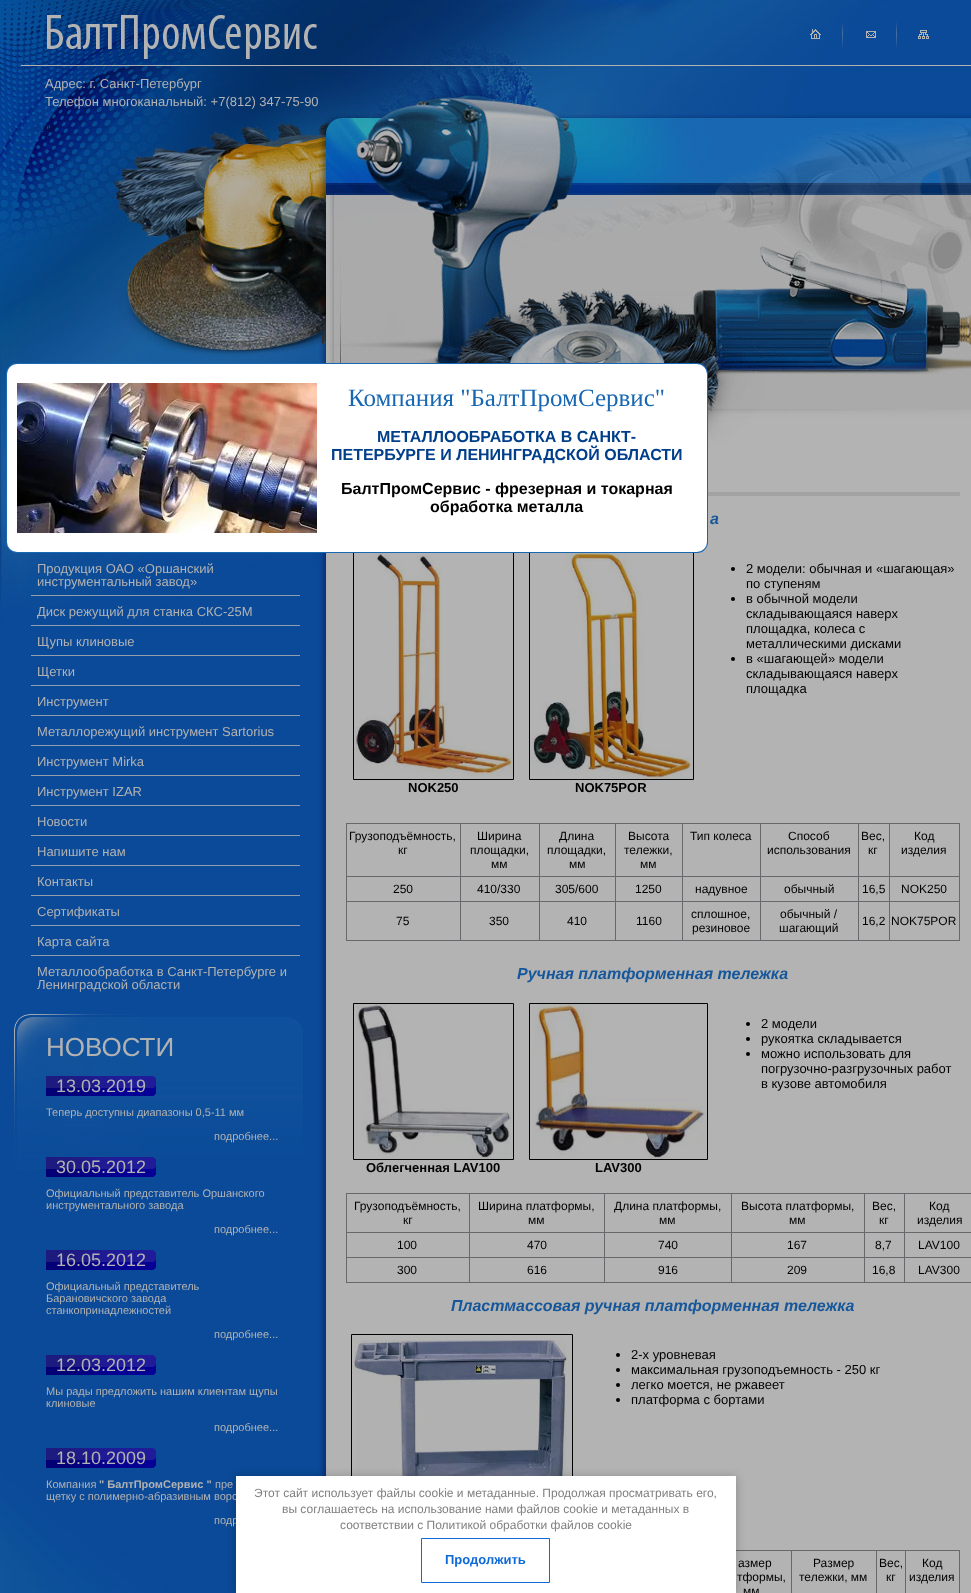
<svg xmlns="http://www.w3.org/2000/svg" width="971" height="1593">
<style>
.a{font:13px Liberation Sans;fill:#b2b2b2}
.b{font:26px Liberation Sans;fill:#b2b2b2}
.c{font:18px Liberation Sans;fill:#b2b2b2}
.d{font:11px Liberation Sans;fill:#b2b2b2}
.e{font:bold 11px Liberation Sans;fill:#b2b2b2}
.f{font:italic bold 16px Liberation Sans;fill:#16579b}
.g{font:13px Liberation Sans;fill:#000}
.h{font:bold 13px Liberation Sans;fill:#000}
.i{font:12px Liberation Sans;fill:#000}
.j{font:25px Liberation Serif;fill:#1867b2}
.k{font:bold 16px Liberation Sans;fill:#023f8a}
.l{font:bold 16px Liberation Sans;fill:#000}
.m{font:12px Liberation Sans;fill:#808080}
.n{font:bold 13px Liberation Sans;fill:#0e69d9}
</style>
<rect width="100%" height="100%" fill="#b3b3b3"/>
<image href="1.png" x="0" y="660" width="326" height="811"/>
<image href="2.png" x="0" y="1471" width="328" height="122"/>
<image href="3.png" x="0" y="0" width="971" height="660"/>
<image href="4.png" x="43" y="15" width="274" height="44"/>
<image href="5.png" x="810" y="21" width="119" height="29"/>
<path fill="#929ead" d="M31 595h269v1H31z"/>
<path fill="#929ead" d="M31 625h269v1H31z"/>
<path fill="#929ead" d="M31 655h269v1H31z"/>
<path fill="#929ead" d="M31 685h269v1H31z"/>
<path fill="#929ead" d="M31 715h269v1H31z"/>
<path fill="#929ead" d="M31 745h269v1H31z"/>
<path fill="#929ead" d="M31 775h269v1H31z"/>
<path fill="#929ead" d="M31 805h269v1H31z"/>
<path fill="#929ead" d="M31 835h269v1H31z"/>
<path fill="#929ead" d="M31 865h269v1H31z"/>
<path fill="#929ead" d="M31 895h269v1H31z"/>
<path fill="#929ead" d="M31 925h269v1H31z"/>
<path fill="#929ead" d="M31 955h269v1H31z"/>
<image href="6.png" x="14" y="1014" width="289" height="156"/>
<image href="7.png" x="46" y="1076" width="110" height="20"/>
<image href="8.png" x="46" y="1157" width="110" height="20"/>
<image href="9.png" x="46" y="1250" width="110" height="20"/>
<image href="9.png" x="46" y="1355" width="110" height="20"/>
<image href="9.png" x="46" y="1448" width="110" height="20"/>
<path fill="#a2a2a2" d="M707 492h253v4H707z"/>
<circle fill="#000" cx="733" cy="569" r="2"/>
<circle fill="#000" cx="733" cy="599" r="2"/>
<circle fill="#000" cx="733" cy="659" r="2"/>
<path fill="none" stroke="#000" d="M353.5 548.5h160v231H353.5z"/>
<image href="10.png" x="354" y="552" width="159" height="224"/>
<path fill="none" stroke="#000" d="M529.5 548.5h164v231H529.5z"/>
<image href="11.png" x="530" y="552" width="161" height="227"/>
<path fill="#66686c" d="M889 823h71v1H889z"/>
<path fill="#66686c" d="M889 876h71v1H889z"/>
<path fill="#66686c" d="M889 901h71v1H889z"/>
<path fill="#66686c" d="M959 901h1v40H959z"/>
<path fill="#66686c" d="M889 940h71v1H889z"/>
<path fill="#66686c" d="M889 901h1v40H889z"/>
<path fill="#66686c" d="M858 901h32v1H858z"/>
<path fill="#66686c" d="M889 876h1v26H889z"/>
<path fill="#66686c" d="M858 876h32v1H858z"/>
<path fill="#66686c" d="M889 823h1v54H889z"/>
<path fill="#66686c" d="M858 823h32v1H858z"/>
<path fill="#66686c" d="M858 940h32v1H858z"/>
<path fill="#66686c" d="M858 901h1v40H858z"/>
<path fill="#66686c" d="M760 901h99v1H760z"/>
<path fill="#66686c" d="M858 876h1v26H858z"/>
<path fill="#66686c" d="M760 876h99v1H760z"/>
<path fill="#66686c" d="M858 823h1v54H858z"/>
<path fill="#66686c" d="M760 823h99v1H760z"/>
<path fill="#66686c" d="M760 940h99v1H760z"/>
<path fill="#66686c" d="M760 901h1v40H760z"/>
<path fill="#66686c" d="M682 901h79v1H682z"/>
<path fill="#66686c" d="M760 876h1v26H760z"/>
<path fill="#66686c" d="M682 876h79v1H682z"/>
<path fill="#66686c" d="M760 823h1v54H760z"/>
<path fill="#66686c" d="M682 823h79v1H682z"/>
<path fill="#66686c" d="M682 940h79v1H682z"/>
<path fill="#66686c" d="M682 901h1v40H682z"/>
<path fill="#66686c" d="M615 901h68v1H615z"/>
<path fill="#66686c" d="M682 876h1v26H682z"/>
<path fill="#66686c" d="M615 876h68v1H615z"/>
<path fill="#66686c" d="M682 823h1v54H682z"/>
<path fill="#66686c" d="M615 823h68v1H615z"/>
<path fill="#66686c" d="M615 940h68v1H615z"/>
<path fill="#66686c" d="M615 901h1v40H615z"/>
<path fill="#66686c" d="M539 901h77v1H539z"/>
<path fill="#66686c" d="M615 876h1v26H615z"/>
<path fill="#66686c" d="M539 876h77v1H539z"/>
<path fill="#66686c" d="M615 823h1v54H615z"/>
<path fill="#66686c" d="M539 823h77v1H539z"/>
<path fill="#66686c" d="M539 940h77v1H539z"/>
<path fill="#66686c" d="M539 901h1v40H539z"/>
<path fill="#66686c" d="M460 901h80v1H460z"/>
<path fill="#66686c" d="M539 876h1v26H539z"/>
<path fill="#66686c" d="M460 876h80v1H460z"/>
<path fill="#66686c" d="M539 823h1v54H539z"/>
<path fill="#66686c" d="M460 823h80v1H460z"/>
<path fill="#66686c" d="M460 940h80v1H460z"/>
<path fill="#66686c" d="M460 901h1v40H460z"/>
<path fill="#66686c" d="M346 901h115v1H346z"/>
<path fill="#66686c" d="M460 876h1v26H460z"/>
<path fill="#66686c" d="M346 876h115v1H346z"/>
<path fill="#66686c" d="M460 823h1v54H460z"/>
<path fill="#66686c" d="M346 823h115v1H346z"/>
<path fill="#66686c" d="M346 940h115v1H346z"/>
<path fill="#66686c" d="M346 901h1v40H346z"/>
<path fill="#66686c" d="M346 876h1v26H346z"/>
<path fill="#66686c" d="M346 823h1v54H346z"/>
<path fill="#66686c" d="M959 876h1v26H959z"/>
<path fill="#66686c" d="M959 823h1v54H959z"/>
<circle fill="#000" cx="748" cy="1024" r="2"/>
<circle fill="#000" cx="748" cy="1039" r="2"/>
<circle fill="#000" cx="748" cy="1054" r="2"/>
<path fill="none" stroke="#000" d="M353.5 1003.5h160v156H353.5z"/>
<image href="12.png" x="357" y="1004" width="156" height="155"/>
<path fill="none" stroke="#000" d="M529.5 1003.5h178v156H529.5z"/>
<image href="13.png" x="534" y="1004" width="171" height="155"/>
<path fill="#66686c" d="M904 1193h67v1H904z"/>
<path fill="#66686c" d="M904 1232h67v1H904z"/>
<path fill="#66686c" d="M904 1257h67v1H904z"/>
<path fill="#66686c" d="M904 1282h67v1H904z"/>
<path fill="#66686c" d="M904 1257h1v26H904z"/>
<path fill="#66686c" d="M864 1257h41v1H864z"/>
<path fill="#66686c" d="M904 1232h1v26H904z"/>
<path fill="#66686c" d="M864 1232h41v1H864z"/>
<path fill="#66686c" d="M904 1193h1v40H904z"/>
<path fill="#66686c" d="M864 1193h41v1H864z"/>
<path fill="#66686c" d="M864 1282h41v1H864z"/>
<path fill="#66686c" d="M864 1257h1v26H864z"/>
<path fill="#66686c" d="M731 1257h134v1H731z"/>
<path fill="#66686c" d="M864 1232h1v26H864z"/>
<path fill="#66686c" d="M731 1232h134v1H731z"/>
<path fill="#66686c" d="M864 1193h1v40H864z"/>
<path fill="#66686c" d="M731 1193h134v1H731z"/>
<path fill="#66686c" d="M731 1282h134v1H731z"/>
<path fill="#66686c" d="M731 1257h1v26H731z"/>
<path fill="#66686c" d="M604 1257h128v1H604z"/>
<path fill="#66686c" d="M731 1232h1v26H731z"/>
<path fill="#66686c" d="M604 1232h128v1H604z"/>
<path fill="#66686c" d="M731 1193h1v40H731z"/>
<path fill="#66686c" d="M604 1193h128v1H604z"/>
<path fill="#66686c" d="M604 1282h128v1H604z"/>
<path fill="#66686c" d="M604 1257h1v26H604z"/>
<path fill="#66686c" d="M469 1257h136v1H469z"/>
<path fill="#66686c" d="M604 1232h1v26H604z"/>
<path fill="#66686c" d="M469 1232h136v1H469z"/>
<path fill="#66686c" d="M604 1193h1v40H604z"/>
<path fill="#66686c" d="M469 1193h136v1H469z"/>
<path fill="#66686c" d="M469 1282h136v1H469z"/>
<path fill="#66686c" d="M469 1257h1v26H469z"/>
<path fill="#66686c" d="M346 1257h124v1H346z"/>
<path fill="#66686c" d="M469 1232h1v26H469z"/>
<path fill="#66686c" d="M346 1232h124v1H346z"/>
<path fill="#66686c" d="M469 1193h1v40H469z"/>
<path fill="#66686c" d="M346 1193h124v1H346z"/>
<path fill="#66686c" d="M346 1282h124v1H346z"/>
<path fill="#66686c" d="M346 1257h1v26H346z"/>
<path fill="#66686c" d="M346 1232h1v26H346z"/>
<path fill="#66686c" d="M346 1193h1v40H346z"/>
<path fill="none" stroke="#000" d="M351.5 1334.5h221v187H351.5z"/>
<image href="14.png" x="352" y="1340" width="215" height="136"/>
<circle fill="#000" cx="618" cy="1355" r="2"/>
<circle fill="#000" cx="618" cy="1370" r="2"/>
<circle fill="#000" cx="618" cy="1385" r="2"/>
<circle fill="#000" cx="618" cy="1400" r="2"/>
<path fill="#66686c" d="M905 1550h55v1H905z"/>
<path fill="#66686c" d="M905 1550h1v43H905z"/>
<path fill="#66686c" d="M876 1550h30v1H876z"/>
<path fill="#66686c" d="M876 1550h1v43H876z"/>
<path fill="#66686c" d="M791 1550h86v1H791z"/>
<path fill="#66686c" d="M791 1550h1v43H791z"/>
<path fill="#66686c" d="M736 1550h56v1H736z"/>
<path fill="#66686c" d="M959 1550h1v43H959z"/>
<rect fill="#1867b2" filter="blur(0.5px)" x="6" y="363" width="702" height="190" rx="11"/>
<rect fill="#fff" x="7" y="364" width="700" height="188" rx="10"/>
<image href="15.png" x="17" y="383" width="300" height="150"/>
<path fill="#0000003b" filter="blur(5px)" d="M236 1477h500v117H236z"/>
<text class="a" x="45" y="88">Адрес: г. Санкт-Петербург</text>
<text class="a" x="45" y="106">Телефон многоканальный: +7(812) 347-75-90</text>
<text class="a" x="37" y="573">Продукция ОАО «Оршанский</text>
<text class="a" x="37" y="586">инструментальный завод»</text>
<text class="a" x="37" y="616">Диск режущий для станка СКС-25М</text>
<text class="a" x="37" y="646">Щупы клиновые</text>
<text class="a" x="37" y="676">Щетки</text>
<text class="a" x="37" y="706">Инструмент</text>
<text class="a" x="37" y="736">Металлорежущий инструмент Sartorius</text>
<text class="a" x="37" y="766">Инструмент Mirka</text>
<text class="a" x="37" y="796">Инструмент IZAR</text>
<text class="a" x="37" y="826">Новости</text>
<text class="a" x="37" y="856">Напишите нам</text>
<text class="a" x="37" y="886">Контакты</text>
<text class="a" x="37" y="916">Сертификаты</text>
<text class="a" x="37" y="946">Карта сайта</text>
<text class="a" x="37" y="976">Металлообработка в Санкт-Петербурге и</text>
<text class="a" x="37" y="989">Ленинградской области</text>
<text class="b" x="46" y="1056">НОВОСТИ</text>
<text class="c" x="56" y="1092">13.03.2019</text>
<text class="d" x="46" y="1116">Теперь доступны диапазоны 0,5-11 мм</text>
<text class="d" x="214" y="1140">подробнее...</text>
<text class="c" x="56" y="1173">30.05.2012</text>
<text class="d" x="46" y="1197">Официальный представитель Оршанского</text>
<text class="d" x="46" y="1209">инструментального завода</text>
<text class="d" x="214" y="1233">подробнее...</text>
<text class="c" x="56" y="1266">16.05.2012</text>
<text class="d" x="46" y="1290">Официальный представитель</text>
<text class="d" x="46" y="1302">Барановичского завода</text>
<text class="d" x="46" y="1314">станкопринадлежностей</text>
<text class="d" x="214" y="1338">подробнее...</text>
<text class="c" x="56" y="1371">12.03.2012</text>
<text class="d" x="46" y="1395">Мы рады предложить нашим клиентам щупы</text>
<text class="d" x="46" y="1407">клиновые</text>
<text class="d" x="214" y="1431">подробнее...</text>
<text class="c" x="56" y="1464">18.10.2009</text>
<text class="d" x="46" y="1488">Компания</text>
<text class="e" x="99" y="1488">" БалтПромСервис "</text>
<text class="d" x="215" y="1488">пре</text>
<text class="d" x="46" y="1500">щетку с полимерно-абразивным ворс</text>
<text class="d" x="214" y="1524">подр</text>
<text class="f" x="710" y="524">а</text>
<text class="g" x="746" y="573">2 модели: обычная и «шагающая»</text>
<text class="g" x="746" y="588">по ступеням</text>
<text class="g" x="746" y="603">в обычной модели</text>
<text class="g" x="746" y="618">складывающаяся наверх</text>
<text class="g" x="746" y="633">площадка, колеса с</text>
<text class="g" x="746" y="648">металлическими дисками</text>
<text class="g" x="746" y="663">в «шагающей» модели</text>
<text class="g" x="746" y="678">складывающаяся наверх</text>
<text class="g" x="746" y="693">площадка</text>
<text class="h" x="408" y="792">NOK250</text>
<text class="h" x="575" y="792">NOK75POR</text>
<text class="i" x="349" y="840">Грузоподъёмность,</text>
<text class="i" x="398" y="854">кг</text>
<text class="i" x="477" y="840">Ширина</text>
<text class="i" x="470" y="854">площадки,</text>
<text class="i" x="491" y="868">мм</text>
<text class="i" x="559" y="840">Длина</text>
<text class="i" x="547" y="854">площадки,</text>
<text class="i" x="569" y="868">мм</text>
<text class="i" x="628" y="840">Высота</text>
<text class="i" x="624" y="854">тележки,</text>
<text class="i" x="640" y="868">мм</text>
<text class="i" x="690" y="840">Тип колеса</text>
<text class="i" x="788" y="840">Способ</text>
<text class="i" x="767" y="854">использования</text>
<text class="i" x="861" y="840">Вес,</text>
<text class="i" x="868" y="854">кг</text>
<text class="i" x="914" y="840">Код</text>
<text class="i" x="901" y="854">изделия</text>
<text class="i" x="393" y="893">250</text>
<text class="i" x="477" y="893">410/330</text>
<text class="i" x="555" y="893">305/600</text>
<text class="i" x="635" y="893">1250</text>
<text class="i" x="695" y="893">надувное</text>
<text class="i" x="784" y="893">обычный</text>
<text class="i" x="862" y="893">16,5</text>
<text class="i" x="901" y="893">NOK250</text>
<text class="i" x="396" y="925">75</text>
<text class="i" x="489" y="925">350</text>
<text class="i" x="567" y="925">410</text>
<text class="i" x="636" y="925">1160</text>
<text class="i" x="691" y="918">сплошное,</text>
<text class="i" x="692" y="932">резиновое</text>
<text class="i" x="780" y="918">обычный /</text>
<text class="i" x="779" y="932">шагающий</text>
<text class="i" x="862" y="925">16,2</text>
<text class="i" x="891" y="925">NOK75POR</text>
<text class="f" x="517" y="979">Ручная платформенная тележка</text>
<text class="g" x="761" y="1028">2 модели</text>
<text class="g" x="761" y="1043">рукоятка складывается</text>
<text class="g" x="761" y="1058">можно использовать для</text>
<text class="g" x="761" y="1073">погрузочно-разгрузочных работ</text>
<text class="g" x="761" y="1088">в кузове автомобиля</text>
<text class="h" x="366" y="1172">Облегченная LAV100</text>
<text class="h" x="595" y="1172">LAV300</text>
<text class="i" x="354" y="1210">Грузоподъёмность,</text>
<text class="i" x="403" y="1224">кг</text>
<text class="i" x="478" y="1210">Ширина платформы,</text>
<text class="i" x="528" y="1224">мм</text>
<text class="i" x="614" y="1210">Длина платформы,</text>
<text class="i" x="659" y="1224">мм</text>
<text class="i" x="741" y="1210">Высота платформы,</text>
<text class="i" x="789" y="1224">мм</text>
<text class="i" x="872" y="1210">Вес,</text>
<text class="i" x="879" y="1224">кг</text>
<text class="i" x="929" y="1210">Код</text>
<text class="i" x="917" y="1224">изделия</text>
<text class="i" x="397" y="1249">100</text>
<text class="i" x="527" y="1249">470</text>
<text class="i" x="658" y="1249">740</text>
<text class="i" x="787" y="1249">167</text>
<text class="i" x="875" y="1249">8,7</text>
<text class="i" x="918" y="1249">LAV100</text>
<text class="i" x="397" y="1274">300</text>
<text class="i" x="527" y="1274">616</text>
<text class="i" x="658" y="1274">916</text>
<text class="i" x="787" y="1274">209</text>
<text class="i" x="872" y="1274">16,8</text>
<text class="i" x="918" y="1274">LAV300</text>
<text class="f" x="451" y="1311">Пластмассовая ручная платформенная тележка</text>
<text class="g" x="631" y="1359">2-х уровневая</text>
<text class="g" x="631" y="1374">максимальная грузоподъемность - 250 кг</text>
<text class="g" x="631" y="1389">легко моется, не ржавеет</text>
<text class="g" x="631" y="1404">платформа с бортами</text>
<text class="i" x="738" y="1567">азмер</text>
<text class="i" x="737" y="1581">тформы,</text>
<text class="i" x="743" y="1595">мм</text>
<text class="i" x="813" y="1567">Размер</text>
<text class="i" x="799" y="1581">тележки, мм</text>
<text class="i" x="879" y="1567">Вес,</text>
<text class="i" x="886" y="1581">кг</text>
<text class="i" x="922" y="1567">Код</text>
<text class="i" x="909" y="1581">изделия</text>
<text class="j" x="348" y="406">Компания "БалтПромСервис"</text>
<text class="k" x="377" y="442">МЕТАЛЛООБРАБОТКА В САНКТ-</text>
<text class="k" x="331" y="460">ПЕТЕРБУРГЕ И ЛЕНИНГРАДСКОЙ ОБЛАСТИ</text>
<text class="l" x="341" y="494">БалтПромСервис - фрезерная и токарная</text>
<text class="l" x="430" y="512">обработка металла</text>
<path fill="#fff" d="M236 1476h500v117H236z"/>
<text class="m" x="254" y="1497">Этот сайт использует файлы cookie и метаданные. Продолжая просматривать его,</text>
<text class="m" x="282" y="1513">вы соглашаетесь на использование нами файлов cookie и метаданных в</text>
<text class="m" x="340" y="1529">соответствии с Политикой обработки файлов cookie</text>
<path fill="none" stroke="#0e69d9" d="M421.5 1538.5h128v44H421.5z"/>
<text class="n" x="445" y="1564">Продолжить</text>
</svg>
